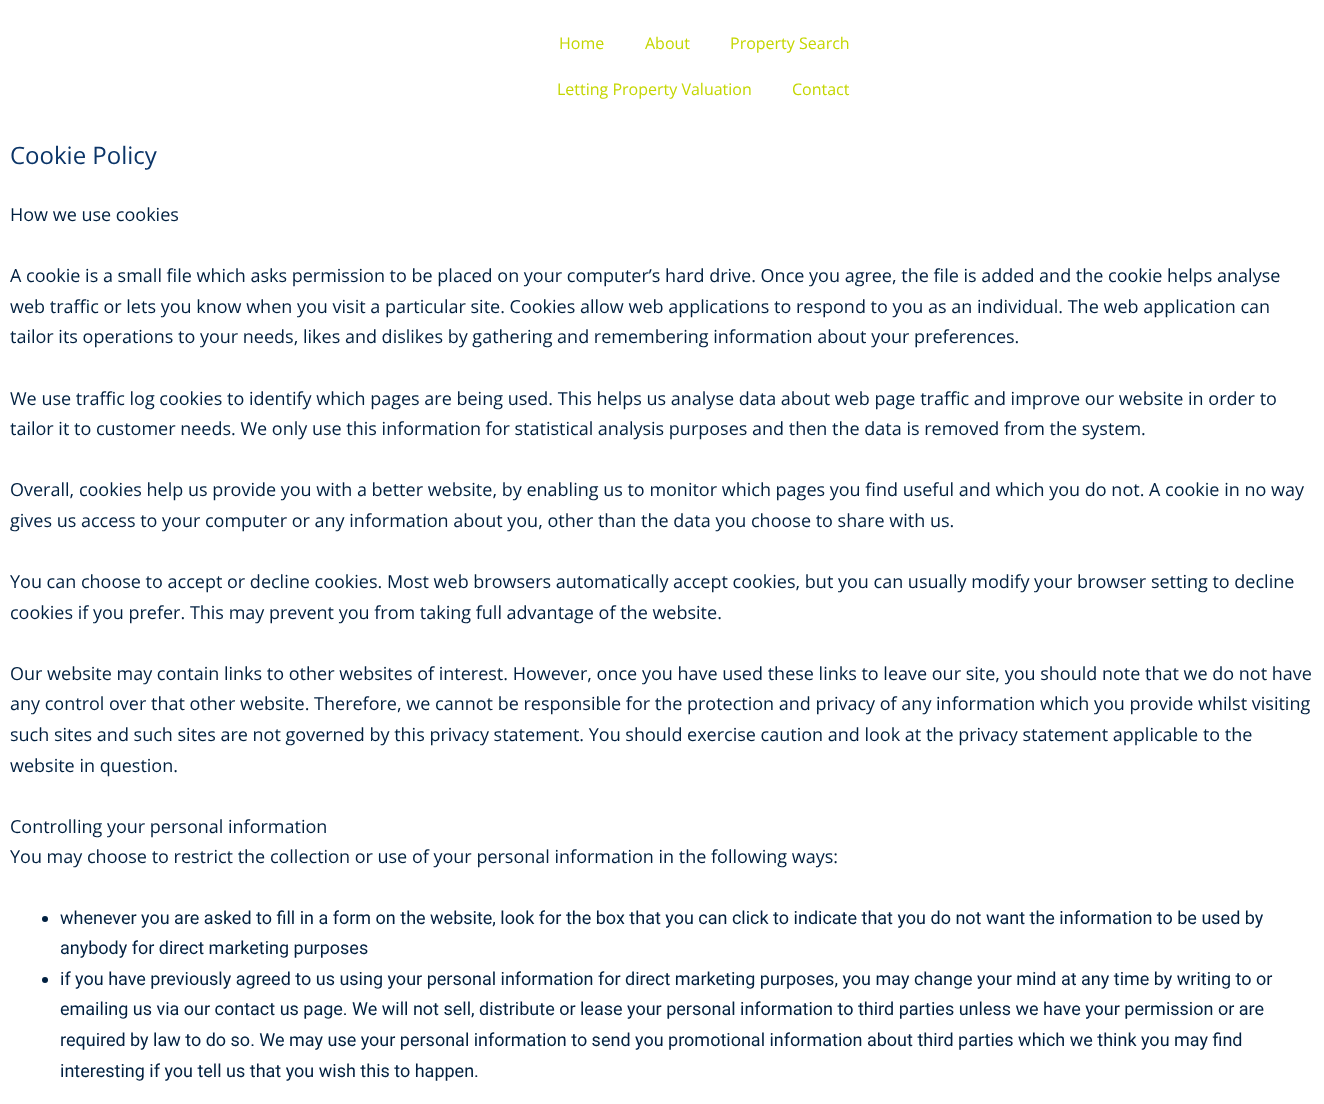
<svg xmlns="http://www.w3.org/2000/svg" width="1324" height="1104">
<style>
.a{font:16px Open Sans;fill:#c4d601}
.b{font:24px Open Sans;fill:#0b3568}
.c{font:18px Open Sans;fill:#002040}
.d{font:18px Roboto;fill:#002040}
</style>
<rect width="100%" height="100%" fill="#fff"/>
<circle fill="#002040" cx="45" cy="919" r="3"/>
<circle fill="#002040" cx="45" cy="980" r="3"/>
<text class="a" x="559" y="49">Home</text>
<text class="a" x="645" y="49">About</text>
<text class="a" x="730" y="49">Property Search</text>
<text class="a" x="557" y="95">Letting Property Valuation</text>
<text class="a" x="792" y="95">Contact</text>
<text class="b" x="10" y="164">Cookie Policy</text>
<text class="c" x="10" y="221">How we use cookies</text>
<text class="c" x="10" y="282">A cookie is a small file which asks permission to be placed on your computer’s hard drive. Once you agree, the file is added and the cookie helps analyse</text>
<text class="c" x="10" y="313">web traffic or lets you know when you visit a particular site. Cookies allow web applications to respond to you as an individual. The web application can</text>
<text class="c" x="10" y="343">tailor its operations to your needs, likes and dislikes by gathering and remembering information about your preferences.</text>
<text class="c" x="10" y="405">We use traffic log cookies to identify which pages are being used. This helps us analyse data about web page traffic and improve our website in order to</text>
<text class="c" x="10" y="435">tailor it to customer needs. We only use this information for statistical analysis purposes and then the data is removed from the system.</text>
<text class="c" x="10" y="496">Overall, cookies help us provide you with a better website, by enabling us to monitor which pages you find useful and which you do not. A cookie in no way</text>
<text class="c" x="10" y="527">gives us access to your computer or any information about you, other than the data you choose to share with us.</text>
<text class="c" x="10" y="588">You can choose to accept or decline cookies. Most web browsers automatically accept cookies, but you can usually modify your browser setting to decline</text>
<text class="c" x="10" y="619">cookies if you prefer. This may prevent you from taking full advantage of the website.</text>
<text class="c" x="10" y="680">Our website may contain links to other websites of interest. However, once you have used these links to leave our site, you should note that we do not have</text>
<text class="c" x="10" y="710">any control over that other website. Therefore, we cannot be responsible for the protection and privacy of any information which you provide whilst visiting</text>
<text class="c" x="10" y="741">such sites and such sites are not governed by this privacy statement. You should exercise caution and look at the privacy statement applicable to the</text>
<text class="c" x="10" y="772">website in question.</text>
<text class="c" x="10" y="833">Controlling your personal information</text>
<text class="c" x="10" y="863">You may choose to restrict the collection or use of your personal information in the following ways:</text>
<text class="d" x="60" y="924">whenever you are asked to fill in a form on the website, look for the box that you can click to indicate that you do not want the information to be used by</text>
<text class="d" x="60" y="954">anybody for direct marketing purposes</text>
<text class="d" x="60" y="985">if you have previously agreed to us using your personal information for direct marketing purposes, you may change your mind at any time by writing to or</text>
<text class="d" x="60" y="1015">emailing us via our contact us page. We will not sell, distribute or lease your personal information to third parties unless we have your permission or are</text>
<text class="d" x="60" y="1046">required by law to do so. We may use your personal information to send you promotional information about third parties which we think you may find</text>
<text class="d" x="60" y="1077">interesting if you tell us that you wish this to happen.</text>
</svg>
